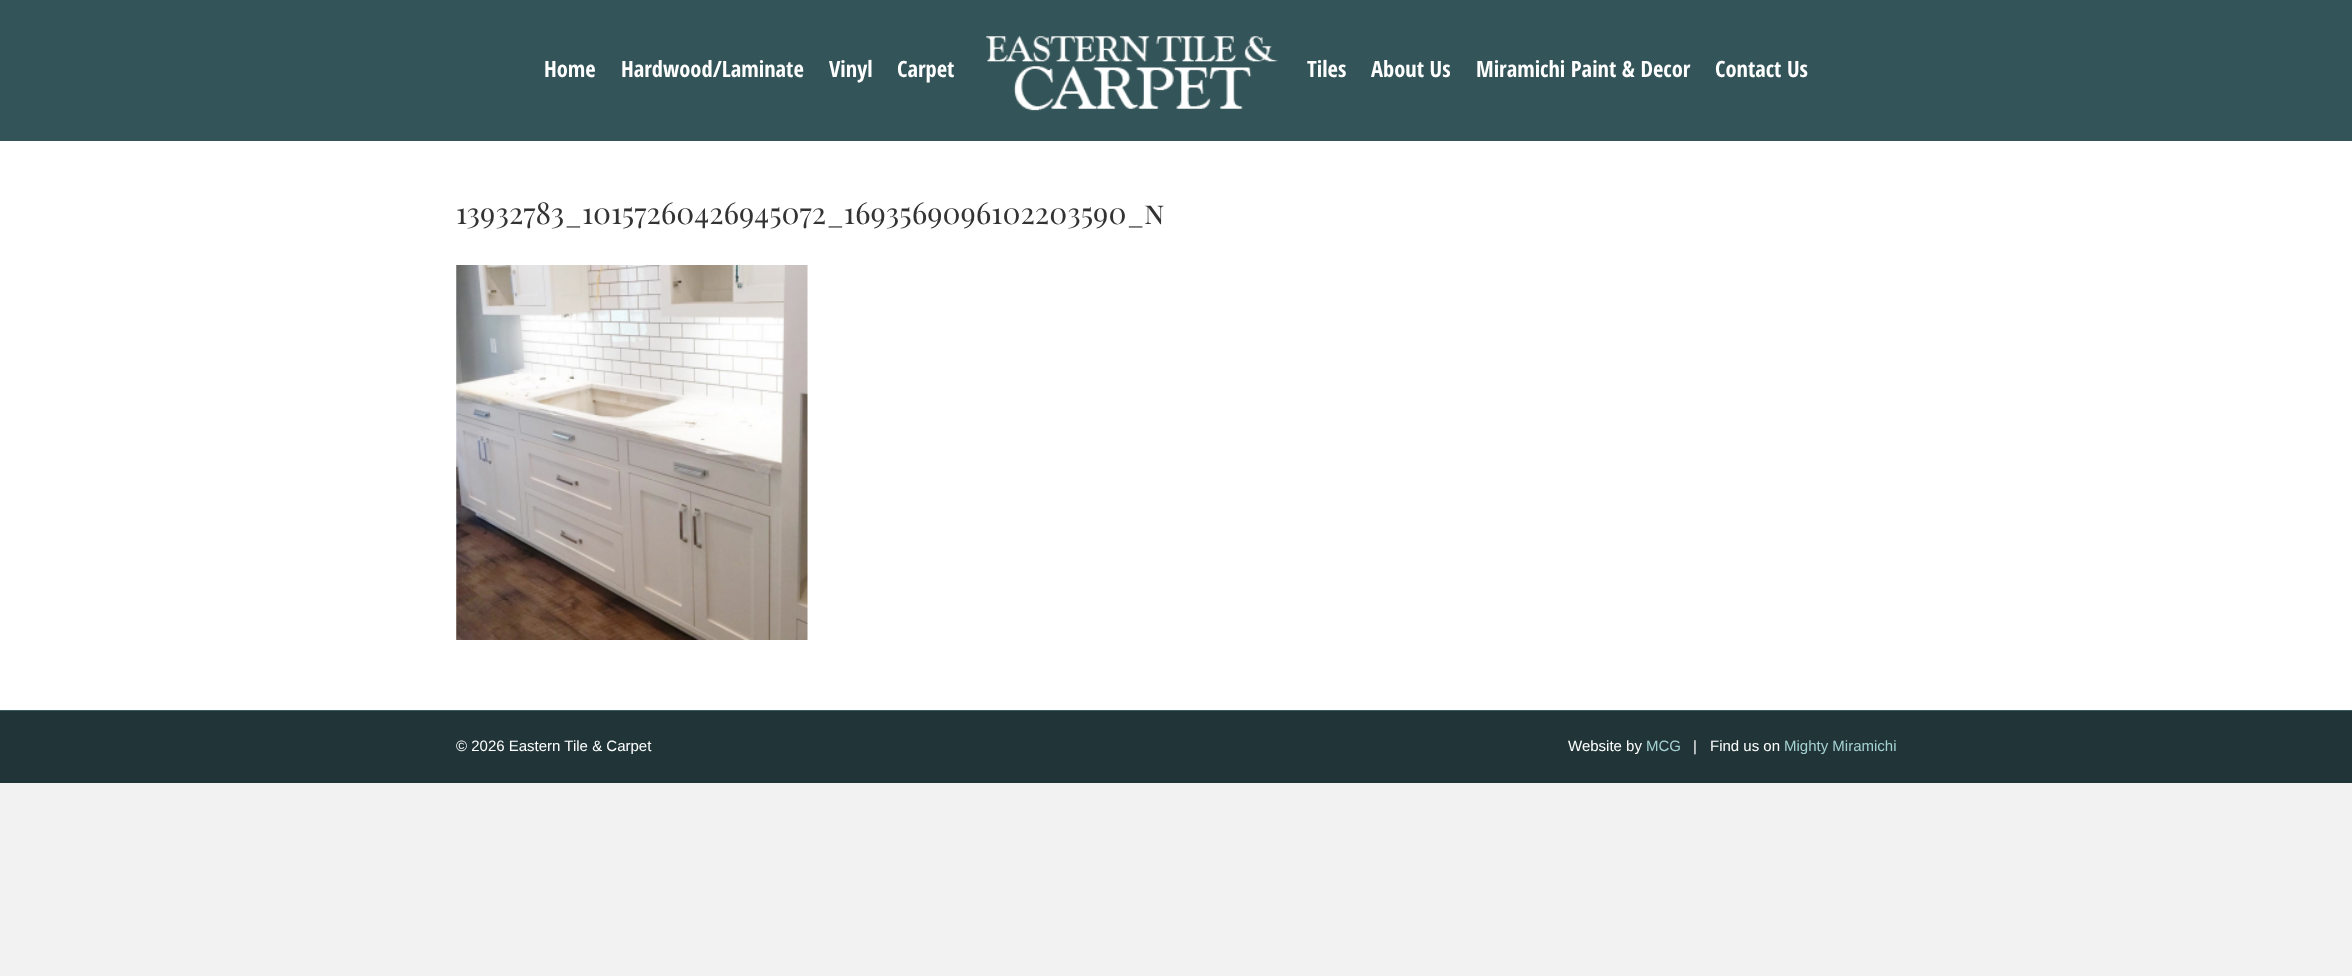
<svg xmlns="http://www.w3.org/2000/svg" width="2352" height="976">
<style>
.a{font:bold 22.5px Open Sans Condensed;fill:#fff}
.b{font:30px Playfair Display SC;fill:#333}
.c{font:15px Liberation Sans;fill:#fff}
.d{font:15px Liberation Sans;fill:#a5d1d2}
</style>
<rect width="100%" height="100%" fill="#f2f2f2"/>
<path fill="#335458" d="M0 0h2352v141H0z"/>
<image href="1.png" x="986" y="36" width="292" height="75"/>
<path fill="#fff" d="M0 141h2352v569H0z"/>
<image href="2.png" x="456" y="265" width="352" height="375"/>
<path fill="#213538" d="M0 711h2352v72H0z"/>
<path fill="#3a5c62" d="M0 710h2352v1H0z"/>
<text class="a" x="544" y="77">Home</text>
<text class="a" x="621" y="77">Hardwood/Laminate</text>
<text class="a" x="829" y="77">Vinyl</text>
<text class="a" x="897" y="77">Carpet</text>
<text class="a" x="1307" y="77">Tiles</text>
<text class="a" x="1371" y="77">About Us</text>
<text class="a" x="1476" y="77">Miramichi Paint &amp; Decor</text>
<text class="a" x="1715" y="77">Contact Us</text>
<text class="b" x="456" y="224">13932783_10157260426945072_1693569096102203590_n</text>
<text class="c" x="456" y="751">© 2026 Eastern Tile &amp; Carpet</text>
<text class="c" x="1568" y="751">Website by</text>
<text class="d" x="1646" y="751">MCG</text>
<text class="c" x="1693" y="751">|</text>
<text class="c" x="1710" y="751">Find us on</text>
<text class="d" x="1784" y="751">Mighty Miramichi</text>
</svg>
